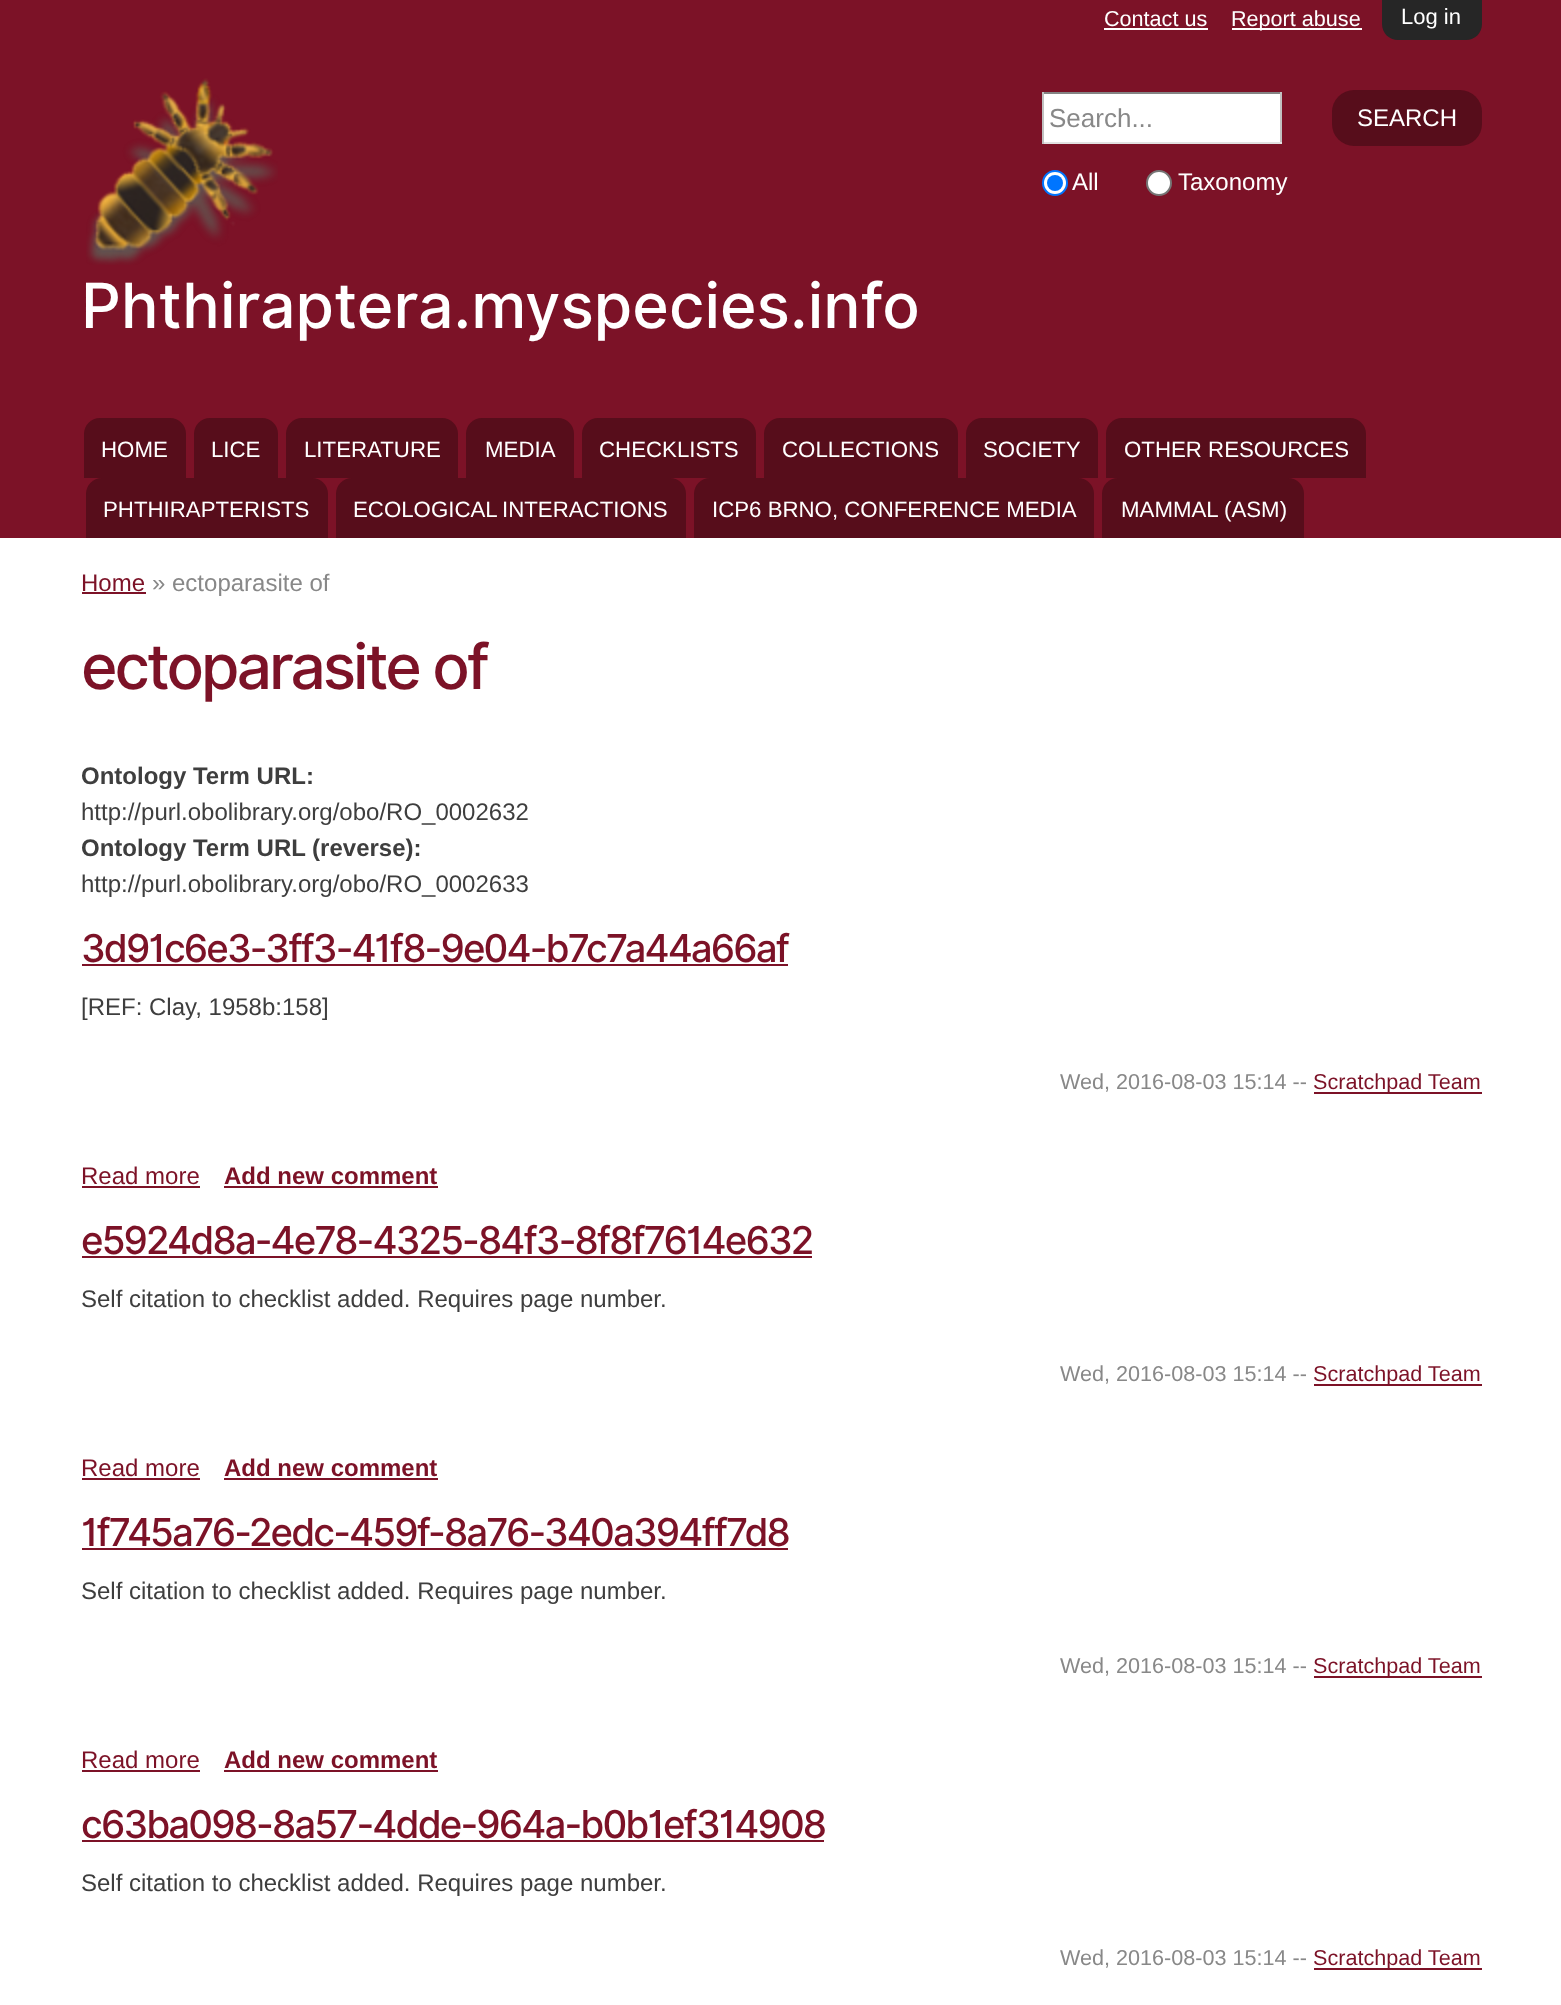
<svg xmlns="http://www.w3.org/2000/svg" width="1561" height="2005">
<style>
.a{font:22px Liberation Sans;fill:#fff}
.b{font:21.6px Liberation Sans;fill:#fff}
.c{font:26px Liberation Sans;fill:#888}
.d{font:24px Liberation Sans;fill:#fff}
.e{font:500 62.4px Inter;fill:#fff}
.f{font:22.25px Liberation Sans;fill:#fff}
.g{font:24px Liberation Sans;fill:#7c1227}
.h{font:24px Liberation Sans;fill:#888}
.i{font:500 62.4px Inter;letter-spacing:-3.1px;fill:#7c1227}
.j{font:bold 24px Liberation Sans;fill:#3e3e3e}
.k{font:24px Liberation Sans;fill:#3e3e3e}
.l{font:500 38.4px Inter;letter-spacing:-1.9px;fill:#7c1227}
.m{font:21.6px Liberation Sans;fill:#888}
.n{font:21.6px Liberation Sans;fill:#7c1227}
.o{font:bold 24px Liberation Sans;fill:#7c1227}
</style>
<rect width="100%" height="100%" fill="#fff"/>
<path fill="#7c1227" d="M0 0h1561v538H0z"/>
<path fill="#262626" d="M1382 0h100v24c0 9-7 16-16 16h-68c-9 0-16-7-16-16z"/>
<path fill="#fff" d="M1104 28h104v2H1104z"/>
<path fill="#fff" d="M1232 28h130v2H1232z"/>
<path fill="#fff" d="M1044 94h236v48H1044z"/>
<path fill="#848484" d="M1042 92h240v2H1042z"/>
<path fill="#c1c1c1" d="M1280 92h2v52H1280z"/>
<path fill="#e1e1e1" d="M1042 142h240v2H1042z"/>
<path fill="#c1c1c1" d="M1042 92h2v52H1042z"/>
<rect fill="#570d1b" x="1332" y="90" width="150" height="56" rx="22"/>
<circle fill="#fff" stroke="#0075ff" stroke-width="2" cx="1055" cy="183" r="12"/>
<circle fill="#0075ff" cx="1055" cy="183" r="8"/>
<circle fill="#fff" stroke="#767676" stroke-width="2" cx="1159" cy="183" r="12"/>
<image href="1.png" x="86" y="78" width="192" height="187"/>
<path fill="#570d1b" d="M100 418h70c9 0 16 7 16 16v44h-102v-44c0-9 7-16 16-16z"/>
<path fill="#570d1b" d="M210 418h52c9 0 16 7 16 16v44h-84v-44c0-9 7-16 16-16z"/>
<path fill="#570d1b" d="M302 418h140c9 0 16 7 16 16v44h-172v-44c0-9 7-16 16-16z"/>
<path fill="#570d1b" d="M482 418h76c9 0 16 7 16 16v44h-108v-44c0-9 7-16 16-16z"/>
<path fill="#570d1b" d="M598 418h142c9 0 16 7 16 16v44h-174v-44c0-9 7-16 16-16z"/>
<path fill="#570d1b" d="M780 418h162c9 0 16 7 16 16v44h-194v-44c0-9 7-16 16-16z"/>
<path fill="#570d1b" d="M982 418h100c9 0 16 7 16 16v44h-132v-44c0-9 7-16 16-16z"/>
<path fill="#570d1b" d="M1122 418h228c9 0 16 7 16 16v44h-260v-44c0-9 7-16 16-16z"/>
<path fill="#570d1b" d="M102 478h210c9 0 16 7 16 16v44h-242v-44c0-9 7-16 16-16z"/>
<path fill="#570d1b" d="M352 478h318c9 0 16 7 16 16v44h-350v-44c0-9 7-16 16-16z"/>
<path fill="#570d1b" d="M710 478h368c9 0 16 7 16 16v44h-400v-44c0-9 7-16 16-16z"/>
<path fill="#570d1b" d="M1118 478h170c9 0 16 7 16 16v44h-202v-44c0-9 7-16 16-16z"/>
<path fill="#7c1227" d="M82 592h64v2H82z"/>
<path fill="#7c1227" d="M82 964h706v2H82z"/>
<path fill="#7c1227" d="M1314 1092h168v2H1314z"/>
<path fill="#7c1227" d="M82 1186h118v2H82z"/>
<path fill="#7c1227" d="M224 1186h214v2H224z"/>
<path fill="#7c1227" d="M82 1256h730v2H82z"/>
<path fill="#7c1227" d="M1314 1384h168v2H1314z"/>
<path fill="#7c1227" d="M82 1478h118v2H82z"/>
<path fill="#7c1227" d="M224 1478h214v2H224z"/>
<path fill="#7c1227" d="M82 1548h706v2H82z"/>
<path fill="#7c1227" d="M1314 1676h168v2H1314z"/>
<path fill="#7c1227" d="M82 1770h118v2H82z"/>
<path fill="#7c1227" d="M224 1770h214v2H224z"/>
<path fill="#7c1227" d="M82 1840h742v2H82z"/>
<path fill="#7c1227" d="M1314 1968h168v2H1314z"/>
<text class="a" x="1401" y="24">Log in</text>
<text class="b" x="1104" y="26">Contact us</text>
<text class="b" x="1231" y="26">Report abuse</text>
<text class="c" x="1049" y="127">Search...</text>
<text class="d" x="1357" y="126">SEARCH</text>
<text class="d" x="1072" y="190">All</text>
<text class="d" x="1178" y="190">Taxonomy</text>
<text class="e" x="81" y="328">Phthiraptera.myspecies.info</text>
<text class="f" x="101" y="457">HOME</text>
<text class="f" x="211" y="457">LICE</text>
<text class="f" x="304" y="457">LITERATURE</text>
<text class="f" x="485" y="457">MEDIA</text>
<text class="f" x="599" y="457">CHECKLISTS</text>
<text class="f" x="782" y="457">COLLECTIONS</text>
<text class="f" x="983" y="457">SOCIETY</text>
<text class="f" x="1124" y="457">OTHER RESOURCES</text>
<text class="f" x="103" y="517">PHTHIRAPTERISTS</text>
<text class="f" x="353" y="517" word-spacing="-1">ECOLOGICAL INTERACTIONS</text>
<text class="f" x="712" y="517">ICP6 BRNO, CONFERENCE MEDIA</text>
<text class="f" x="1121" y="517">MAMMAL (ASM)</text>
<text class="g" x="81" y="591">Home</text>
<text class="h" x="152" y="591">» ectoparasite of</text>
<text class="i" x="81" y="689">ectoparasite of</text>
<text class="j" x="81" y="784">Ontology Term URL:</text>
<text class="k" x="81" y="820">http://purl.obolibrary.org/obo/RO_0002632</text>
<text class="j" x="81" y="856">Ontology Term URL (reverse):</text>
<text class="k" x="81" y="892">http://purl.obolibrary.org/obo/RO_0002633</text>
<text class="l" x="81" y="962">3d91c6e3-3ff3-41f8-9e04-b7c7a44a66af</text>
<text class="k" x="81" y="1015">[REF: Clay, 1958b:158]</text>
<text class="m" x="1060" y="1089">Wed, 2016-08-03 15:14 --</text>
<text class="n" x="1313" y="1089">Scratchpad Team</text>
<text class="g" x="81" y="1184">Read more</text>
<text class="o" x="224" y="1184">Add new comment</text>
<text class="l" x="81" y="1254">e5924d8a-4e78-4325-84f3-8f8f7614e632</text>
<text class="k" x="81" y="1307">Self citation to checklist added. Requires page number.</text>
<text class="m" x="1060" y="1381">Wed, 2016-08-03 15:14 --</text>
<text class="n" x="1313" y="1381">Scratchpad Team</text>
<text class="g" x="81" y="1476">Read more</text>
<text class="o" x="224" y="1476">Add new comment</text>
<text class="l" x="81" y="1546">1f745a76-2edc-459f-8a76-340a394ff7d8</text>
<text class="k" x="81" y="1599">Self citation to checklist added. Requires page number.</text>
<text class="m" x="1060" y="1673">Wed, 2016-08-03 15:14 --</text>
<text class="n" x="1313" y="1673">Scratchpad Team</text>
<text class="g" x="81" y="1768">Read more</text>
<text class="o" x="224" y="1768">Add new comment</text>
<text class="l" x="81" y="1838">c63ba098-8a57-4dde-964a-b0b1ef314908</text>
<text class="k" x="81" y="1891">Self citation to checklist added. Requires page number.</text>
<text class="m" x="1060" y="1965">Wed, 2016-08-03 15:14 --</text>
<text class="n" x="1313" y="1965">Scratchpad Team</text>
</svg>
